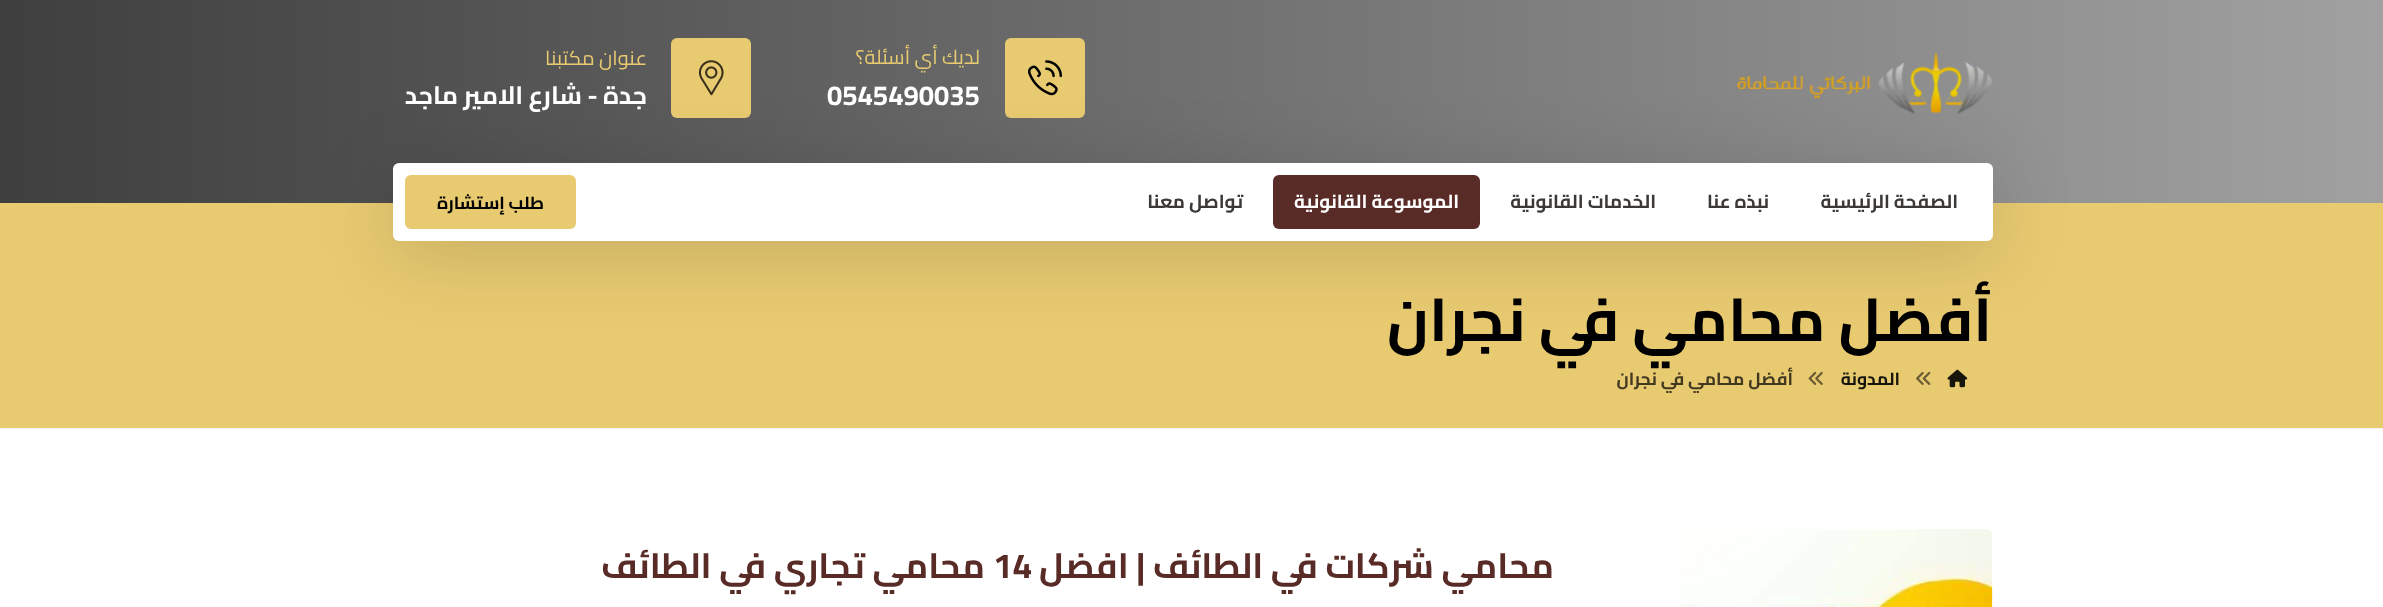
<svg xmlns="http://www.w3.org/2000/svg" width="2383" height="607">
<style>
.a{font:20px Cairo;direction:rtl;fill:#e8ca71}
.b{font:bold 27.5px Cairo;fill:#fff}
.c{font:bold 25px Cairo;direction:rtl;fill:#fff}
.d{font:bold 18.75px Cairo;direction:rtl;fill:#3b3836}
.e{font:bold 18.75px Cairo;direction:rtl;fill:#fff}
.f{font:bold 17.5px Cairo;direction:rtl;fill:#000}
.g{font:bold 60px Cairo;direction:rtl;fill:#000}
.h{font:bold 17.5px Cairo;direction:rtl;fill:#17140b}
.i{font:bold 17.5px Cairo;direction:rtl;fill:#413820}
.j{font:bold 35px Cairo;direction:rtl;fill:#582b26}
.k{font:bold 35px Cairo;fill:#582b26}
</style>
<defs>
<linearGradient id="g1" gradientUnits="userSpaceOnUse" x1="0" y1="101" x2="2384" y2="101"><stop offset="0" stop-color="#3f3f3f"/><stop offset="1" stop-color="#a1a1a1"/></linearGradient>
</defs>
<rect width="100%" height="100%" fill="#fff"/>
<path fill="url(#g1)" d="M0 0h2383v203H0z"/>
<image href="1.png" x="1736" y="52" width="257" height="62"/>
<rect fill="#e8ca71" x="1005" y="38" width="80" height="80" rx="6"/>
<image href="2.png" x="1028" y="60" width="34" height="36"/>
<rect fill="#e8ca71" x="671" y="38" width="80" height="80" rx="6"/>
<image href="3.png" x="698" y="60" width="26" height="36"/>
<path fill="#e8ca71" d="M0 203h2383v225H0z"/>
<rect fill="#00000026" filter="blur(37.5px)" x="393" y="175" width="1600" height="79" rx="6"/>
<rect fill="#fff" x="393" y="163" width="1600" height="78" rx="6"/>
<rect fill="#582b26" x="1273" y="175" width="207" height="54" rx="6"/>
<rect fill="#e8ca71" x="405" y="175" width="171" height="54" rx="6"/>
<path fill="#f4f4f4" d="M0 428h2383v1H0z"/>
<image href="4.png" x="1947" y="369" width="21" height="19"/>
<image href="5.png" x="1916" y="371" width="15" height="14"/>
<image href="6.png" x="1808" y="371" width="15" height="14"/>
<image href="7.png" x="1680" y="529" width="313" height="78"/>
<text class="a" x="980" y="64">لديك أي أسئلة؟</text>
<text class="b" x="827" y="105">0545490035</text>
<text class="a" x="647" y="65">عنوان مكتبنا</text>
<text class="c" x="647" y="104">جدة - شارع الامير ماجد</text>
<text class="d" x="1958" y="208">الصفحة الرئيسية</text>
<text class="d" x="1769" y="208">نبذه عنا</text>
<text class="d" x="1656" y="208">الخدمات القانونية</text>
<text class="e" x="1459" y="208">الموسوعة القانونية</text>
<text class="d" x="1243" y="208">تواصل معنا</text>
<text class="f" x="544" y="209">طلب إستشارة</text>
<text class="g" x="1992" y="341">أفضل محامي في نجران</text>
<text class="h" x="1900" y="385">المدونة</text>
<text class="i" x="1793" y="385">أفضل محامي في نجران</text>
<text class="j" x="1554" y="578">محامي شركات في الطائف | افضل</text>
<text class="k" x="993" y="578">14</text>
<text class="j" x="985" y="578">محامي تجاري في الطائف</text>
</svg>
